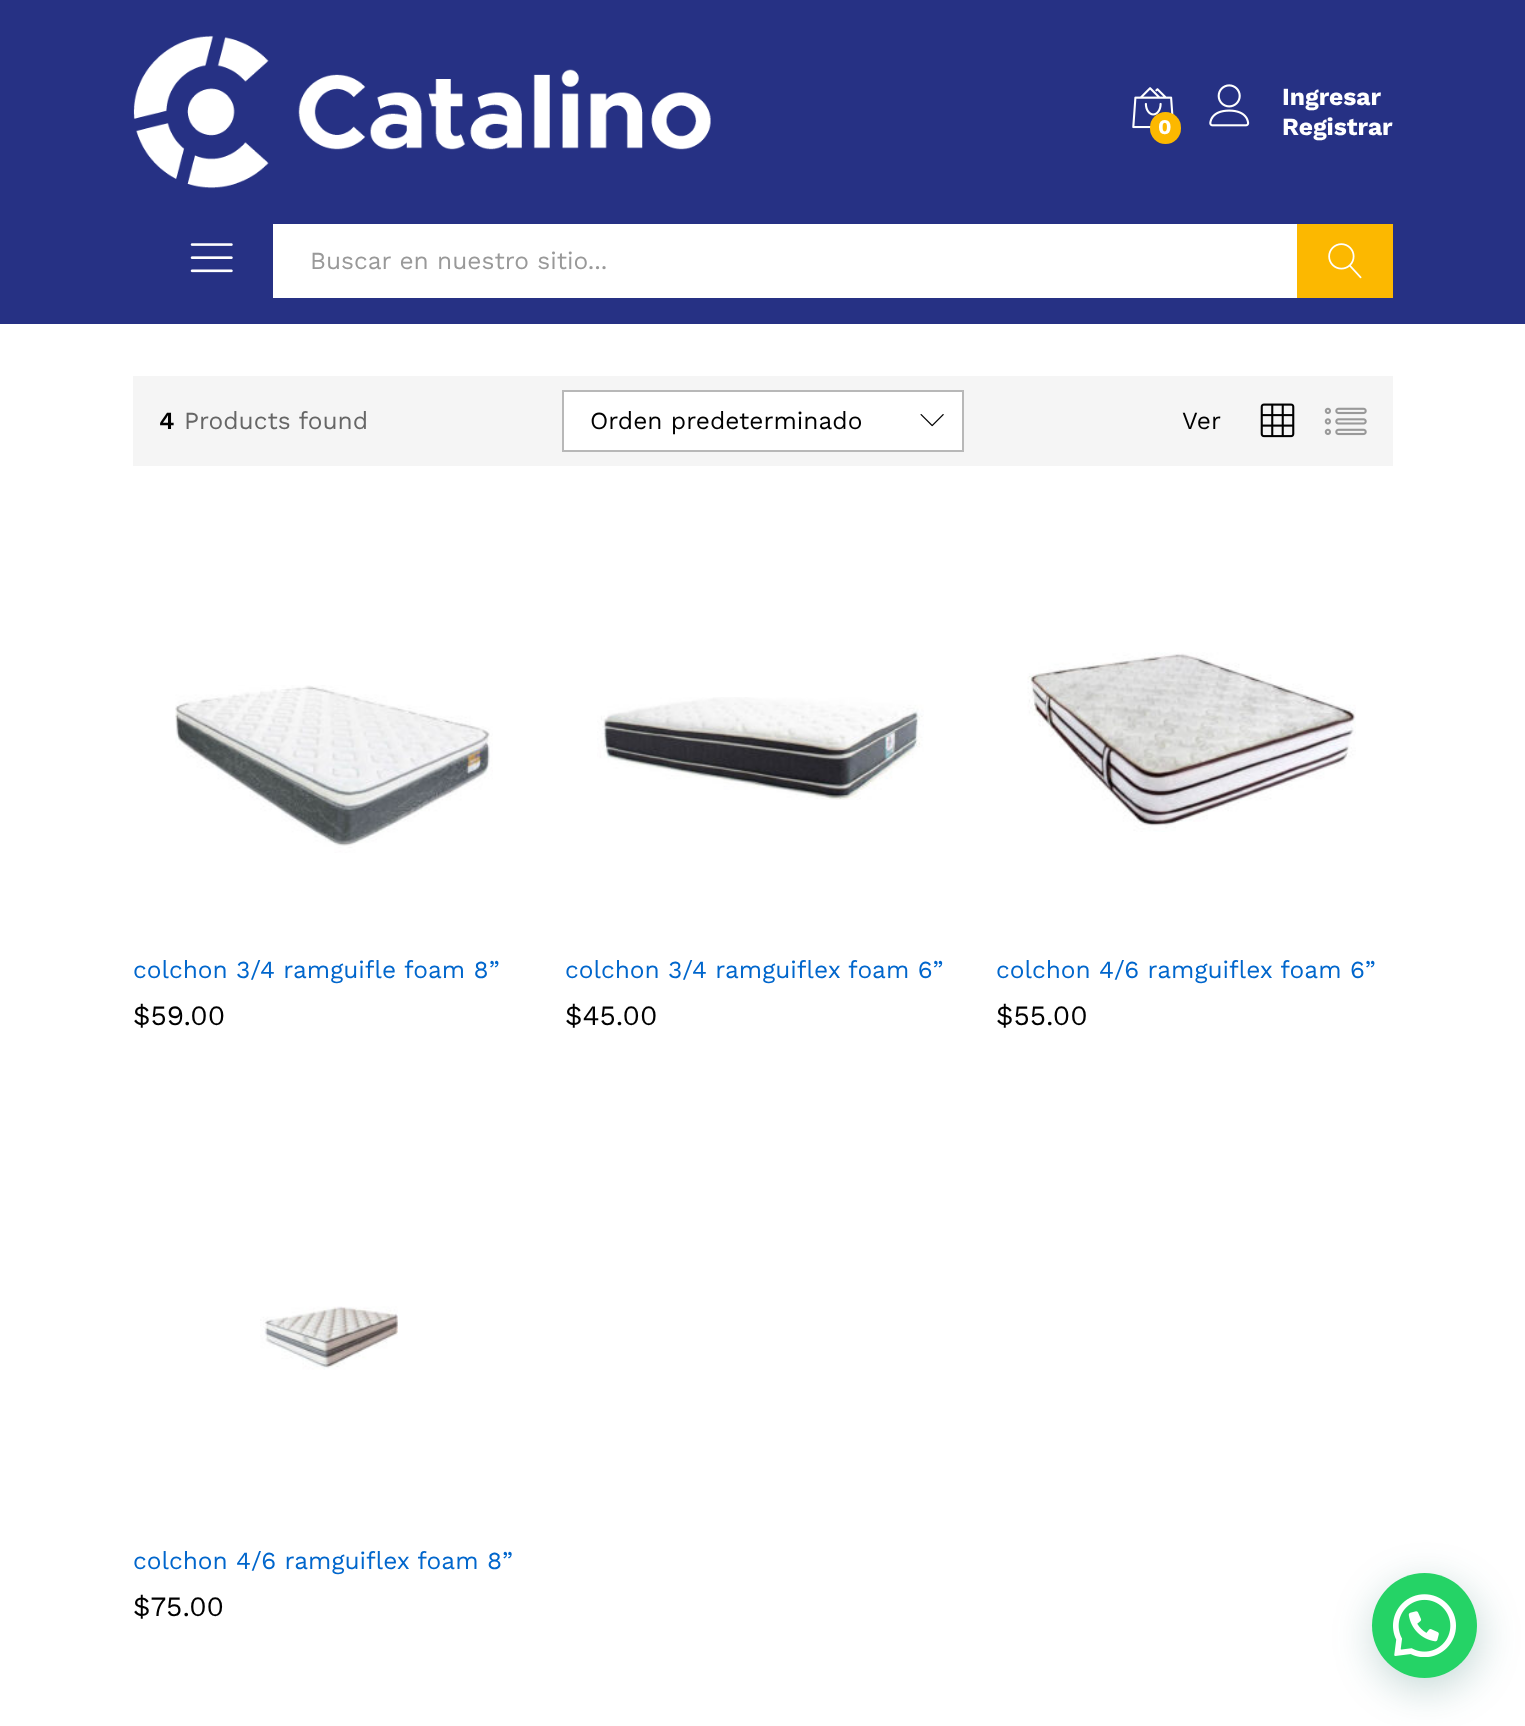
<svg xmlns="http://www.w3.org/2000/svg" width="1525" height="1726">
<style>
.a{font:bold 21px Work Sans;fill:#fff}
.b{font:bold 24.5px Work Sans;fill:#fff}
.c{font:24.5px Work Sans;fill:#999}
.d{font:600 24.5px Work Sans;fill:#000}
.e{font:24.5px Work Sans;fill:#666}
.f{font:24.5px Work Sans;fill:#000}
.g{font:24.5px Work Sans;fill:#06c}
.h{font:28px Work Sans;fill:#000}
</style>
<rect width="100%" height="100%" fill="#fff"/>
<path fill="#263184" d="M0 0h1525v324H0z"/>
<image href="1.png" x="133" y="35" width="578" height="154"/>
<image href="2.png" x="1132" y="87" width="42" height="42"/>
<rect fill="#fcb800" x="1150" y="112" width="31" height="32" rx="15.5"/>
<image href="3.png" x="1209" y="84" width="41" height="43"/>
<image href="4.png" x="190" y="243" width="43" height="30"/>
<path fill="#fff" d="M273 224h1024v74H273z"/>
<path fill="#fcb800" d="M1297 224h96v74H1297z"/>
<image href="5.png" x="1328" y="243" width="34" height="36"/>
<path fill="#f5f5f5" d="M133 376h1260v90H133z"/>
<path fill="#fff" stroke="#b8b8b8" stroke-width="2" d="M563 391h400v60H563z"/>
<image href="6.png" x="920" y="414" width="24" height="13"/>
<image href="7.png" x="1260" y="403" width="35" height="35"/>
<image href="8.png" x="1324" y="407" width="43" height="29"/>
<image href="9.png" x="175" y="685" width="318" height="168"/>
<image href="10.png" x="597" y="697" width="327" height="103"/>
<image href="11.png" x="1027" y="652" width="329" height="180"/>
<image href="12.png" x="260" y="1306" width="138" height="64"/>
<rect fill="#075e543d" filter="blur(21px)" x="1374" y="1584" width="105" height="105" rx="52.5"/>
<circle fill="#25d366" cx="1424.5" cy="1625.5" r="52.5"/>
<image href="13.png" x="1393" y="1594" width="63" height="63"/>
<text class="a" x="1158" y="134">0</text>
<text class="b" x="1282" y="105">Ingresar</text>
<text class="b" x="1282" y="135">Registrar</text>
<text class="c" x="310" y="269">Buscar en nuestro sitio...</text>
<text class="d" x="159" y="429">4</text>
<text class="e" x="184" y="429">Products found</text>
<text class="f" x="590" y="429">Orden predeterminado</text>
<text class="f" x="1182" y="429">Ver</text>
<text class="g" x="133" y="978">colchon 3/4 ramguifle foam 8”</text>
<text class="h" x="133" y="1025">$59.00</text>
<text class="g" x="565" y="978">colchon 3/4 ramguiflex foam 6”</text>
<text class="h" x="565" y="1025">$45.00</text>
<text class="g" x="996" y="978">colchon 4/6 ramguiflex foam 6”</text>
<text class="h" x="996" y="1025">$55.00</text>
<text class="g" x="133" y="1569">colchon 4/6 ramguiflex foam 8”</text>
<text class="h" x="133" y="1616">$75.00</text>
</svg>
